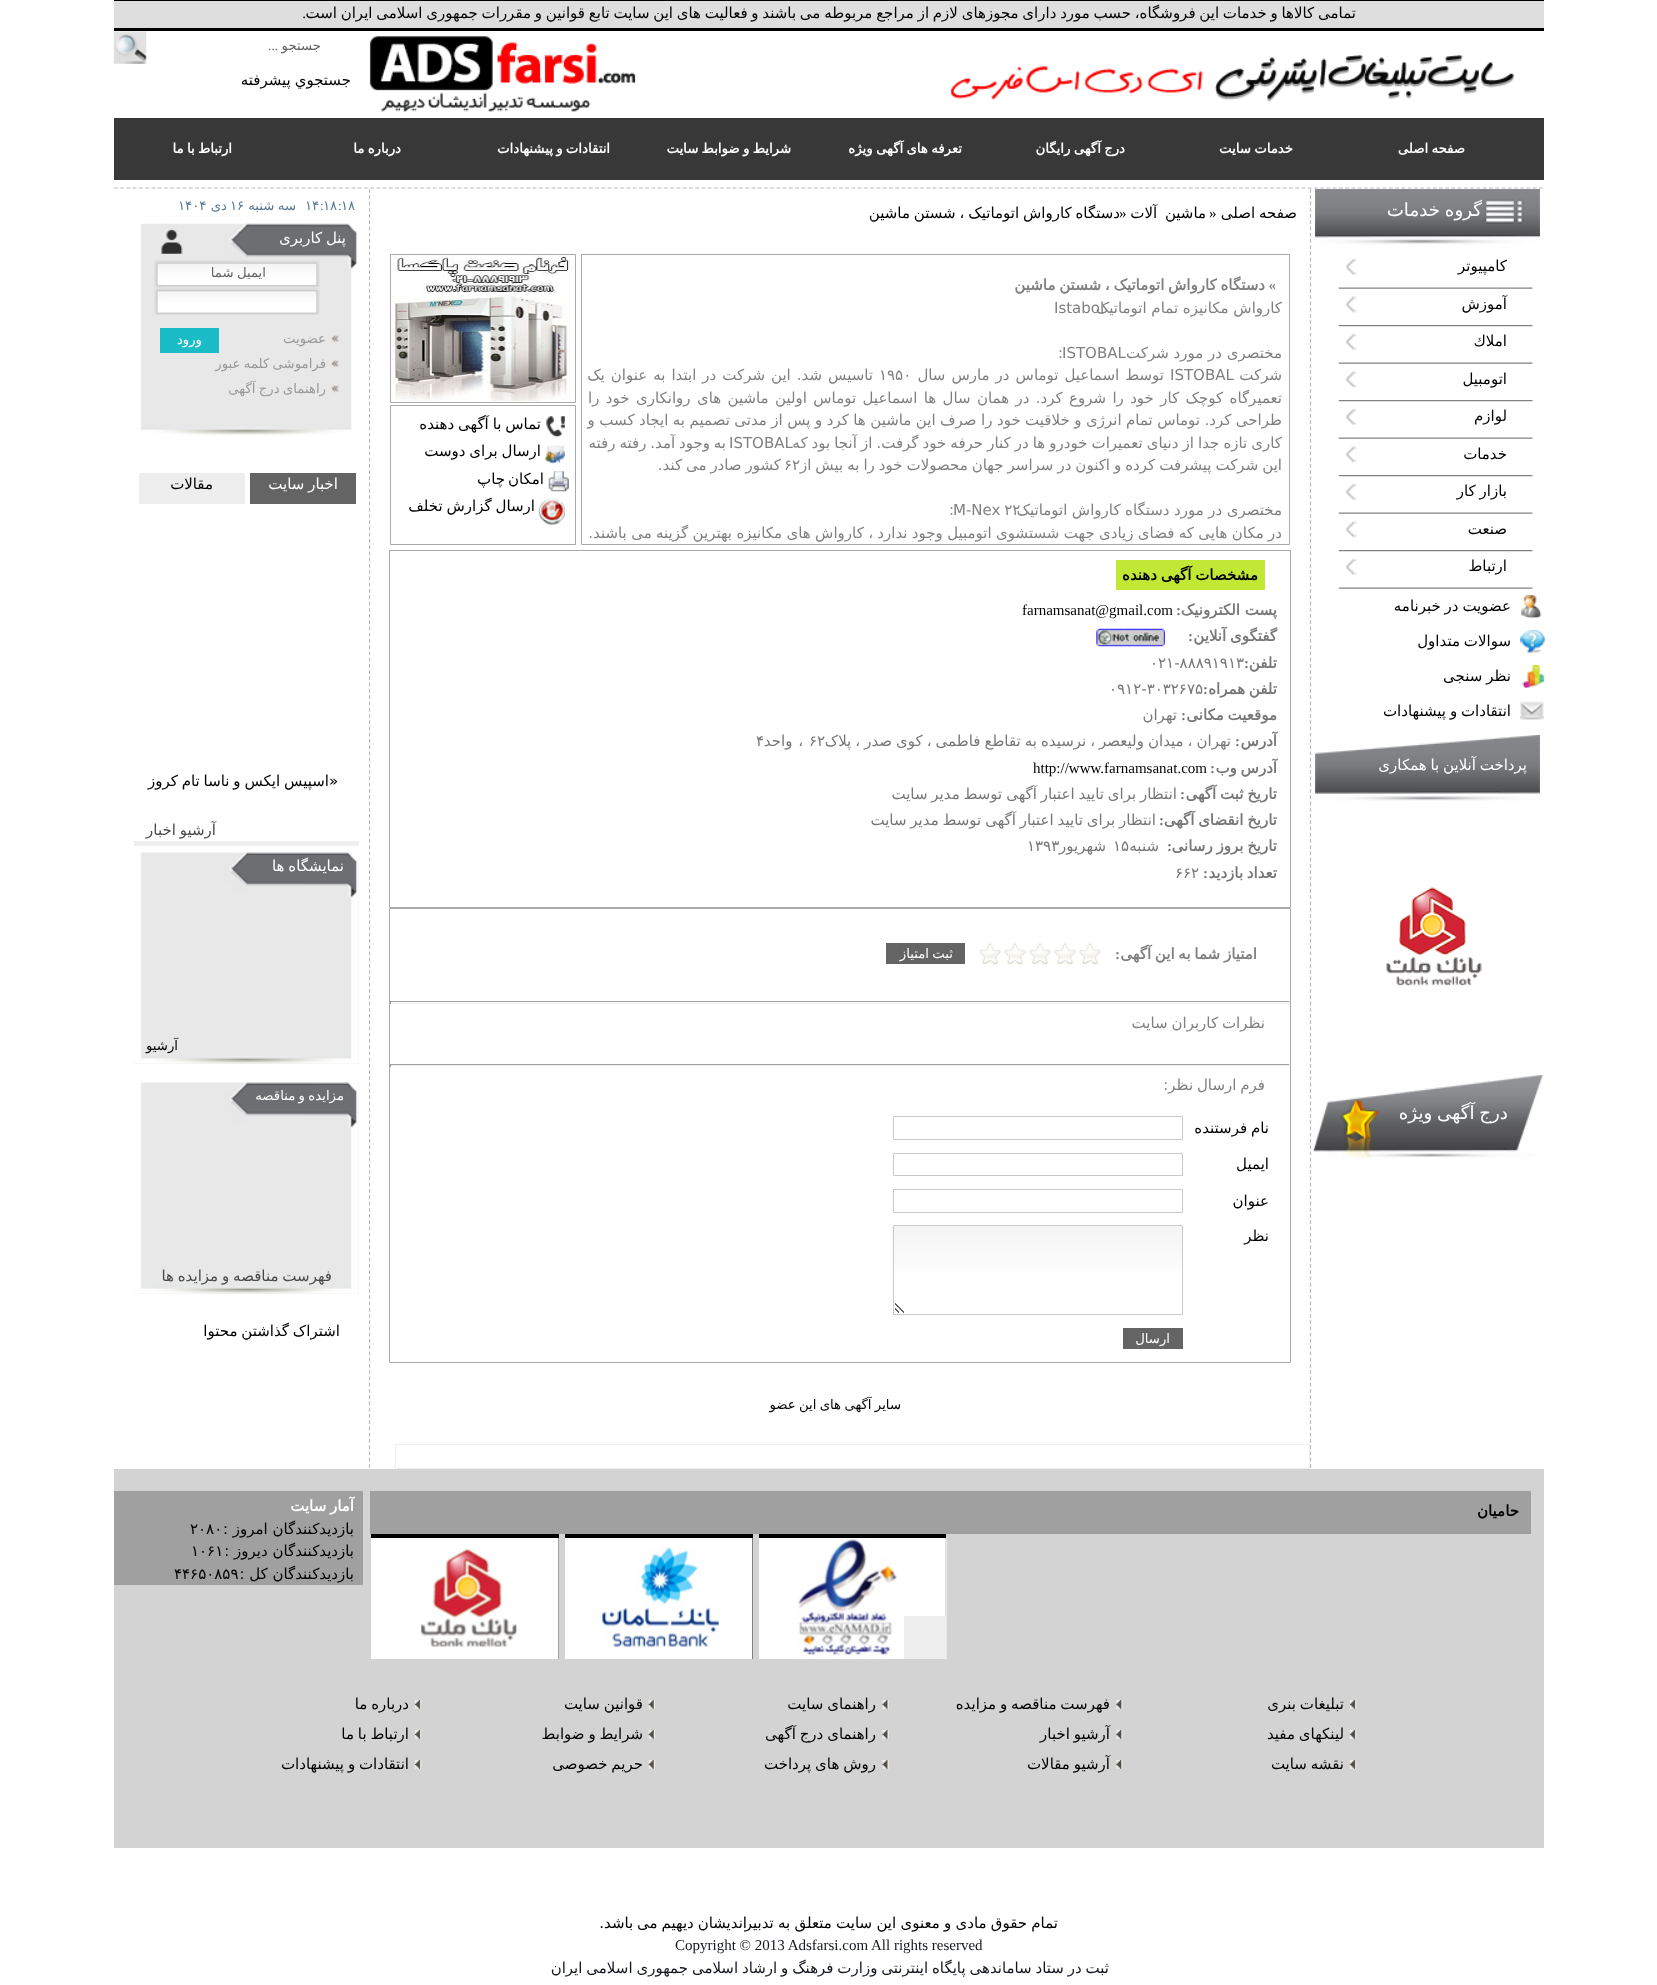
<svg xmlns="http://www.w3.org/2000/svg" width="1657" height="1985">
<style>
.a{font:15px DejaVu Sans;direction:rtl;fill:#010101}
.b{font:15px Liberation Serif;direction:rtl;fill:#010101}
.c{font:13.25px DejaVu Sans;direction:rtl;fill:#646464}
.d{font:13.25px Liberation Serif;direction:rtl;fill:#646464}
.e{font:bold 13.25px DejaVu Sans;direction:rtl;fill:#fff}
.f{font:18.25px DejaVu Sans;direction:rtl;fill:#fff}
.g{font:15px DejaVu Sans;direction:rtl;fill:#fff}
.h{font:15px Liberation Serif;fill:#010101}
.i{font:bold 15px DejaVu Sans;direction:rtl;fill:#808080}
.j{font:bold 15px Liberation Serif;direction:rtl;fill:#808080}
.k{font:15px DejaVu Sans;fill:#808080}
.l{font:15px DejaVu Sans;direction:rtl;fill:#808080}
.m{font:bold 15px DejaVu Sans;direction:rtl;fill:#010101}
.n{font:bold 15px DejaVu Sans;direction:rtl;fill:#777}
.o{font:bold 15px Liberation Serif;direction:rtl;fill:#777}
.p{font:15px DejaVu Sans;fill:#777}
.q{font:15px DejaVu Sans;direction:rtl;fill:#777}
.r{font:13.25px DejaVu Sans;direction:rtl;fill:#fff}
.s{font:13.25px DejaVu Sans;direction:rtl;fill:#010101}
.t{font:13.25px DejaVu Sans;fill:#597992}
.u{font:13.25px Liberation Serif;fill:#597992}
.v{font:13.25px DejaVu Sans;direction:rtl;fill:#597992}
.w{font:13.25px DejaVu Sans;direction:rtl;fill:#999}
.x{font:15px DejaVu Sans;fill:#010101}
.y{font:15px DejaVu Sans;direction:rtl;fill:#4a4a4a}
.z{font:bold 15px DejaVu Sans;direction:rtl;fill:#fff}
.a1{font:15px Liberation Serif;fill:#141720}
.b1{font:15px DejaVu Sans;direction:rtl;fill:#141720}
</style>
<defs>
<clipPath id="clip1"><path d="M143 773h197v32H143z"/></clipPath>
</defs>
<rect width="100%" height="100%" fill="#fff"/>
<path fill="none" stroke="#bdb9b8" stroke-width="1.2" stroke-dasharray="3.75 2.5" d="M114 188h1430"/>
<path fill="#dedede" d="M114 1h1430v27H114z"/>
<path fill="#000" d="M114 0h1430v1H114z"/>
<path fill="#000" d="M114 28h1430v3H114z"/>
<image href="1.png" x="369" y="36" width="267" height="76"/>
<image href="2.png" x="950" y="54" width="564" height="48"/>
<image href="3.png" x="113" y="31" width="34" height="33"/>
<path fill="#383838" d="M114 118h1430v62H114z"/>
<image href="4.png" x="1315" y="189" width="225" height="56"/>
<image href="5.png" x="1338" y="287" width="195" height="2"/>
<image href="6.png" x="1346" y="258" width="11" height="17"/>
<image href="7.png" x="1338" y="325" width="195" height="2"/>
<image href="8.png" x="1346" y="296" width="11" height="17"/>
<image href="5.png" x="1338" y="362" width="195" height="2"/>
<image href="6.png" x="1346" y="333" width="11" height="17"/>
<image href="7.png" x="1338" y="400" width="195" height="2"/>
<image href="8.png" x="1346" y="371" width="11" height="17"/>
<image href="5.png" x="1338" y="437" width="195" height="2"/>
<image href="6.png" x="1346" y="408" width="11" height="17"/>
<image href="7.png" x="1338" y="475" width="195" height="2"/>
<image href="8.png" x="1346" y="446" width="11" height="17"/>
<image href="5.png" x="1338" y="512" width="195" height="2"/>
<image href="6.png" x="1346" y="483" width="11" height="17"/>
<image href="7.png" x="1338" y="550" width="195" height="2"/>
<image href="8.png" x="1346" y="521" width="11" height="17"/>
<image href="5.png" x="1338" y="587" width="195" height="2"/>
<image href="6.png" x="1346" y="558" width="11" height="17"/>
<image href="9.png" x="1521" y="595" width="21" height="23"/>
<image href="10.png" x="1520" y="630" width="25" height="23"/>
<image href="11.png" x="1522" y="665" width="23" height="23"/>
<image href="12.png" x="1520" y="701" width="24" height="19"/>
<image href="13.png" x="1315" y="735" width="225" height="66"/>
<image href="14.png" x="1386" y="887" width="96" height="99"/>
<image href="15.png" x="1313" y="1075" width="230" height="83"/>
<path fill="none" stroke="#bdb9b8" stroke-width="1.2" stroke-dasharray="3.75 2.5" d="M1310.5 189v1280"/>
<path fill="none" stroke="#bdb9b8" stroke-width="1.2" stroke-dasharray="3.75 2.5" d="M369.5 189v1280"/>
<path fill="none" stroke="#aaa" d="M581.5 254.5h708v290H581.5z"/>
<path fill="none" stroke="#aaa" d="M390.5 254.5h185v148H390.5z"/>
<image href="16.png" x="391" y="255" width="183" height="147"/>
<path fill="none" stroke="#aaa" d="M390.5 405.5h185v139H390.5z"/>
<image href="17.png" x="546" y="416" width="19" height="21"/>
<image href="18.png" x="545" y="445" width="20" height="19"/>
<image href="19.png" x="548" y="471" width="21" height="21"/>
<image href="20.png" x="538" y="498" width="27" height="27"/>
<path fill="none" stroke="#aaa" d="M389.5 550.5h901v357H389.5z"/>
<path fill="#c1e835" d="M1116 560h149v30H1116z"/>
<image href="21.png" x="1096" y="628" width="69" height="19"/>
<path fill="none" stroke="#aaa" d="M389.5 908.5h901v454H389.5z"/>
<image href="22.png" x="978" y="942" width="124" height="23"/>
<path fill="#646464" d="M886 943h79v21H886z"/>
<path fill="#9f9f9f" d="M390 1001h900v1H390z"/>
<path fill="#eee" d="M1289 1001h1v3H1289z"/>
<path fill="#eee" d="M390 1003h900v1H390z"/>
<path fill="#9f9f9f" d="M390 1001h1v3H390z"/>
<path fill="#9f9f9f" d="M390 1064h900v1H390z"/>
<path fill="#eee" d="M1289 1064h1v3H1289z"/>
<path fill="#eee" d="M390 1065h900v1H390z"/>
<path fill="#9f9f9f" d="M390 1064h1v3H390z"/>
<path fill="none" stroke="#cacaca" d="M893.5 1116.5h289v23H893.5z"/>
<path fill="none" stroke="#cacaca" d="M893.5 1153.5h289v22H893.5z"/>
<path fill="none" stroke="#cacaca" d="M893.5 1189.5h289v23H893.5z"/>
<image href="23.png" x="892" y="1226" width="290" height="87"/>
<path fill="none" stroke="#cacaca" d="M893.5 1225.5h289v89H893.5z"/>
<path fill="#646464" d="M1123 1328h60v21H1123z"/>
<path fill="none" stroke="#eee" d="M395.5 1444.5h914v24H395.5z"/>
<path fill="#fff" d="M368 189h1v1191H368z"/>
<image href="24.png" x="140" y="223" width="218" height="212"/>
<image href="25.png" x="154" y="260" width="166" height="28"/>
<image href="26.png" x="154" y="287" width="166" height="28"/>
<image href="27.png" x="331" y="335" width="8" height="8"/>
<path fill="#1abdc7" d="M160 328h59v25H160z"/>
<image href="27.png" x="331" y="360" width="8" height="8"/>
<image href="27.png" x="331" y="385" width="8" height="8"/>
<path fill="#eee" d="M134 841h225v5H134z"/>
<path fill="#646464" d="M250 473h106v31H250z"/>
<path fill="#eee" d="M139 473h106v31H139z"/>
<path fill="#e7e2df" d="M134 853h225v211H134z"/>
<image href="28.png" x="134" y="852" width="225" height="212"/>
<path fill="#e7e2df" d="M134 1083h225v211H134z"/>
<image href="28.png" x="134" y="1082" width="225" height="212"/>
<path fill="#d3d3d3" d="M114 1469h1430v379H114z"/>
<path fill="#a0a0a0" d="M370 1491h1161v43H370z"/>
<path fill="#000" d="M759 1534h187v82H759z"/>
<image href="29.png" x="759" y="1538" width="188" height="121"/>
<path fill="#000" d="M565 1534h188v125H565z"/>
<image href="30.png" x="565" y="1538" width="188" height="121"/>
<path fill="#000" d="M371 1534h188v125H371z"/>
<image href="31.png" x="371" y="1538" width="188" height="121"/>
<path fill="#eee" d="M904 1616h42v43H904z"/>
<path fill="#a0a0a0" d="M114 1491h249v94H114z"/>
<image href="32.png" x="1350" y="1700" width="7" height="9"/>
<image href="32.png" x="1350" y="1730" width="7" height="9"/>
<image href="32.png" x="1350" y="1760" width="7" height="9"/>
<image href="33.png" x="1116" y="1700" width="7" height="9"/>
<image href="33.png" x="1116" y="1730" width="7" height="9"/>
<image href="33.png" x="1116" y="1760" width="7" height="9"/>
<image href="34.png" x="882" y="1700" width="7" height="9"/>
<image href="34.png" x="882" y="1730" width="7" height="9"/>
<image href="34.png" x="882" y="1760" width="7" height="9"/>
<image href="35.png" x="648" y="1700" width="7" height="9"/>
<image href="35.png" x="648" y="1730" width="7" height="9"/>
<image href="35.png" x="648" y="1760" width="7" height="9"/>
<image href="36.png" x="415" y="1700" width="7" height="9"/>
<image href="36.png" x="415" y="1730" width="7" height="9"/>
<image href="36.png" x="415" y="1760" width="7" height="9"/>
<text class="a" x="1356" y="18" word-spacing="-1">تمامی کالاها و خدمات این فروشگاه، حسب مورد دارای مجوزهای لازم از مراجع مربوطه می باشند و فعالیت های این سایت تابع قوانین و مقررات جمهوری اسلامی ایران است</text>
<text class="b" x="306" y="18">.</text>
<text class="c" x="321" y="50">جستجو</text>
<text class="d" x="278" y="50">...</text>
<text class="a" x="351" y="85" word-spacing="-0.9">جستجوي پيشرفته</text>
<text class="e" x="1465" y="153" word-spacing="-0.9">صفحه اصلی</text>
<text class="e" x="1293" y="153" word-spacing="-0.9">خدمات سایت</text>
<text class="e" x="1125" y="153" word-spacing="-0.9">درج آگهی رایگان</text>
<text class="e" x="962" y="153" word-spacing="-0.9">تعرفه های آگهی ویژه</text>
<text class="e" x="791" y="153" word-spacing="-0.9">شرایط و ضوابط سایت</text>
<text class="e" x="610" y="153" word-spacing="-0.9">انتقادات و پیشنهادات</text>
<text class="e" x="401" y="153" word-spacing="-0.9">درباره ما</text>
<text class="e" x="232" y="153" word-spacing="-0.9">ارتباط با ما</text>
<text class="f" x="1482" y="216" word-spacing="-1">گروه خدمات</text>
<text class="a" x="1507" y="271">كامپيوتر</text>
<text class="a" x="1507" y="309">آموزش</text>
<text class="a" x="1507" y="346">املاك</text>
<text class="a" x="1507" y="384">اتومبيل</text>
<text class="a" x="1507" y="421">لوازم</text>
<text class="a" x="1507" y="459">خدمات</text>
<text class="a" x="1507" y="496" word-spacing="-0.9">بازار كار</text>
<text class="a" x="1507" y="534">صنعت</text>
<text class="a" x="1507" y="571">ارتباط</text>
<text class="a" x="1511" y="611" word-spacing="-0.9">عضویت در خبرنامه</text>
<text class="a" x="1511" y="646" word-spacing="-0.9">سوالات متداول</text>
<text class="a" x="1511" y="681" word-spacing="-0.9">نظر سنجی</text>
<text class="a" x="1511" y="716" word-spacing="-0.9">انتقادات و پیشنهادات</text>
<text class="g" x="1527" y="770" word-spacing="-1">پرداخت آنلاین با همکاری</text>
<text class="f" x="1508" y="1119" word-spacing="-1">درج آگهی ویژه</text>
<text class="a" x="1297" y="218" word-spacing="-0.9">صفحه اصلی</text>
<text class="a" x="1206" y="218" word-spacing="3">ماشين آلات</text>
<text class="h" x="1209" y="218">»</text>
<text class="h" x="1119" y="218">»</text>
<text class="a" x="1120" y="218" word-spacing="-0.9">دستگاه کارواش اتوماتیک ، شستن ماشین</text>
<text class="i" x="1265" y="290" word-spacing="-1">دستگاه کارواش اتوماتیک ، شستن ماشین</text>
<text class="j" x="1276" y="290">»</text>
<text class="k" x="1054" y="313">Istabol</text>
<text class="l" x="1282" y="313">کارواش مکانیزه تمام اتوماتیک</text>
<text class="l" x="1282" y="358">مختصری در مورد شرکت</text>
<text class="k" x="1062" y="358">ISTOBAL</text>
<text class="k" x="1058" y="358">:</text>
<text class="l" x="1282" y="380">شرکت</text>
<text class="k" x="1170" y="380">ISTOBAL</text>
<text class="l" x="1164" y="380" word-spacing="1.25">توسط اسماعیل توماس در مارس سال</text>
<text class="k" x="879" y="380">۱۹۵۰</text>
<text class="l" x="873" y="380" word-spacing="1.25">تاسیس شد. این شرکت در ابتدا به عنوان یک</text>
<text class="l" x="1282" y="403" word-spacing="1.6">تعمیرگاه کوچک کار خود را شروع کرد. در همان سال ها اسماعیل توماس اولین ماشین های روانکاری خود را</text>
<text class="l" x="1282" y="425" word-spacing="-0.3">طراحی کرد. توماس تمام انرژی و خلاقیت خود را صرف این ماشین ها کرد و پس از مدتی تصمیم به ایجاد کسب و</text>
<text class="k" x="729" y="448">ISTOBAL</text>
<text class="l" x="1282" y="448" word-spacing="-0.7">کاری تازه جدا از دنیای تعمیرات خودرو ها در کنار حرفه خود گرفت. از آنجا بود که</text>
<text class="l" x="726" y="448" word-spacing="-0.9">به وجود آمد. رفته رفته</text>
<text class="k" x="784" y="470">۶۲</text>
<text class="l" x="1282" y="470" word-spacing="-0.75">این شرکت پیشرفت کرده و اکنون در سراسر جهان محصولات خود را به بیش از</text>
<text class="l" x="781" y="470" word-spacing="-0.9">کشور صادر می کند.</text>
<text class="k" x="953" y="515" word-spacing="-0.9">M-Nex ۲۲</text>
<text class="l" x="1282" y="515" word-spacing="-0.25">مختصری در مورد دستگاه کارواش اتوماتیک</text>
<text class="k" x="949" y="515">:</text>
<text class="l" x="1282" y="538" word-spacing="-0.4">در مکان هایی که فضای زیادی جهت شستشوی اتومبیل وجود ندارد ، کارواش های مکانیزه بهترین گزینه می باشند.</text>
<text class="a" x="541" y="429" word-spacing="-0.9">تماس با آگهی دهنده</text>
<text class="a" x="541" y="456" word-spacing="-0.9">ارسال برای دوست</text>
<text class="a" x="544" y="484">امکان</text>
<text class="a" x="505" y="484">چاپ</text>
<text class="a" x="535" y="511" word-spacing="-0.9">ارسال گزارش تخلف</text>
<text class="m" x="1258" y="580" word-spacing="-1">مشخصات آگهی دهنده</text>
<text class="n" x="1277" y="615">پست الکترونیک</text>
<text class="o" x="1181" y="615">:</text>
<text class="h" x="1022" y="615">farnamsanat@gmail.com</text>
<text class="n" x="1277" y="641" word-spacing="-1">گفتگوی آنلاین</text>
<text class="o" x="1193" y="641">:</text>
<text class="n" x="1277" y="668">تلفن</text>
<text class="o" x="1249" y="668">:</text>
<text class="p" x="1150" y="668">۰۲۱-۸۸۸۹۱۹۱۳</text>
<text class="n" x="1277" y="694" word-spacing="-1">تلفن همراه</text>
<text class="o" x="1208" y="694">:</text>
<text class="p" x="1109" y="694">۰۹۱۲-۳۰۳۲۶۷۵</text>
<text class="n" x="1277" y="720" word-spacing="-1">موقعیت مکانی</text>
<text class="o" x="1186" y="720">:</text>
<text class="q" x="1177" y="720">تهران</text>
<text class="n" x="1277" y="746">آدرس</text>
<text class="p" x="809" y="746">۶۲</text>
<text class="q" x="803" y="746" word-spacing="1">، واحد</text>
<text class="p" x="756" y="746">۴</text>
<text class="o" x="1240" y="746">:</text>
<text class="q" x="1231" y="746" word-spacing="-0.75">تهران ، میدان ولیعصر ، نرسیده به تقاطع فاطمی ، کوی صدر ، پلاک</text>
<text class="n" x="1277" y="773" word-spacing="-1">آدرس وب</text>
<text class="o" x="1215" y="773">:</text>
<text class="h" x="1033" y="773">http://www.farnamsanat.com</text>
<text class="n" x="1277" y="799" word-spacing="-1">تاریخ ثبت آگهی</text>
<text class="o" x="1185" y="799">:</text>
<text class="q" x="1177" y="799" word-spacing="-0.9">انتظار برای تایید اعتبار آگهی توسط مدیر سایت</text>
<text class="n" x="1277" y="825" word-spacing="-1">تاریخ انقضای آگهی</text>
<text class="o" x="1164" y="825">:</text>
<text class="q" x="1156" y="825" word-spacing="-0.9">انتظار برای تایید اعتبار آگهی توسط مدیر سایت</text>
<text class="n" x="1277" y="851" word-spacing="-1">تاریخ بروز رسانی</text>
<text class="o" x="1172" y="851">:</text>
<text class="q" x="1159" y="851">شنبه</text>
<text class="p" x="1113" y="851">۱۵</text>
<text class="p" x="1027" y="851">۱۳۹۳</text>
<text class="q" x="1106" y="851">شهریور</text>
<text class="n" x="1277" y="878" word-spacing="-1">تعداد بازدید</text>
<text class="o" x="1208" y="878">:</text>
<text class="p" x="1175" y="878">۶۶۲</text>
<text class="i" x="1257" y="959" word-spacing="-1">امتیاز شما به این آگهی</text>
<text class="j" x="1120" y="959">:</text>
<text class="r" x="953" y="958" word-spacing="-0.9">ثبت امتیاز</text>
<text class="l" x="1265" y="1028" word-spacing="-0.9">نظرات کاربران سایت</text>
<text class="l" x="1265" y="1090" word-spacing="-0.9">فرم ارسال نظر:</text>
<text class="a" x="1269" y="1133" word-spacing="-0.9">نام فرستنده</text>
<text class="a" x="1269" y="1169">ایمیل</text>
<text class="a" x="1269" y="1206">عنوان</text>
<text class="a" x="1269" y="1241">نظر</text>
<text class="r" x="1170" y="1343">ارسال</text>
<text class="s" x="901" y="1409" word-spacing="-0.9">سایر آگهی های این عضو</text>
<text class="t" x="341" y="210">۱۸</text>
<text class="u" x="338" y="210">:</text>
<text class="t" x="323" y="210">۱۸</text>
<text class="u" x="320" y="210">:</text>
<text class="t" x="305" y="210">۱۴</text>
<text class="v" x="296" y="210" word-spacing="-0.9">سه شنبه</text>
<text class="t" x="230" y="210">۱۶</text>
<text class="v" x="227" y="210">دی</text>
<text class="t" x="178" y="210">۱۴۰۴</text>
<text class="g" x="346" y="243" word-spacing="-1">پنل کاربری</text>
<text class="c" x="266" y="277" word-spacing="-0.9">ایمیل شما</text>
<text class="w" x="326" y="343">عضویت</text>
<text class="r" x="202" y="344">ورود</text>
<text class="w" x="326" y="368" word-spacing="-0.9">فراموشی کلمه عبور</text>
<text class="w" x="326" y="393" word-spacing="-0.9">راهنمای درج آگهی</text>
<text class="g" x="338" y="489" word-spacing="-0.9">اخبار سایت</text>
<text class="a" x="213" y="489">مقالات</text>
<text class="x" x="329" y="786">»</text>
<g clip-path="url(#clip1)">
<text class="a" x="329" y="786" word-spacing="-0.9">اسپیس ایکس و ناسا تام کروز را</text>
</g>
<text class="y" x="216" y="835" word-spacing="-0.9">آرشیو اخبار</text>
<text class="g" x="344" y="871" word-spacing="-0.9">نمایشگاه ها</text>
<text class="s" x="178" y="1050">آرشیو</text>
<text class="r" x="344" y="1100" word-spacing="-0.9">مزایده و مناقصه</text>
<text class="y" x="332" y="1281" word-spacing="-0.9">فهرست مناقصه و مزایده ها</text>
<text class="a" x="340" y="1336" word-spacing="-0.9">اشتراک گذاشتن محتوا</text>
<text class="m" x="1519" y="1516">حامیان</text>
<text class="z" x="354" y="1511" word-spacing="-1">آمار سایت</text>
<text class="a" x="354" y="1534">بازدیدکنندگان امروز :</text>
<text class="x" x="190" y="1534">۲۰۸۰</text>
<text class="a" x="354" y="1556">بازدیدکنندگان دیروز :</text>
<text class="x" x="191" y="1556">۱۰۶۱</text>
<text class="a" x="354" y="1579">بازدیدکنندگان کل :</text>
<text class="x" x="174" y="1579">۴۴۶۵۰۸۵۹</text>
<text class="a" x="1344" y="1709" word-spacing="-0.9">تبلیغات بنری</text>
<text class="a" x="1344" y="1739" word-spacing="-0.9">لینکهای مفید</text>
<text class="a" x="1344" y="1769" word-spacing="-0.9">نقشه سایت</text>
<text class="a" x="1110" y="1709" word-spacing="-0.9">فهرست مناقصه و مزایده</text>
<text class="a" x="1110" y="1739" word-spacing="-0.9">آرشیو اخبار</text>
<text class="a" x="1110" y="1769" word-spacing="-0.9">آرشیو مقالات</text>
<text class="a" x="876" y="1709" word-spacing="-0.9">راهنمای سایت</text>
<text class="a" x="876" y="1739" word-spacing="-0.9">راهنمای درج آگهی</text>
<text class="a" x="876" y="1769" word-spacing="-0.9">روش های پرداخت</text>
<text class="a" x="643" y="1709" word-spacing="-0.9">قوانین سایت</text>
<text class="a" x="643" y="1739" word-spacing="-0.9">شرایط و ضوابط</text>
<text class="a" x="643" y="1769" word-spacing="-0.9">حریم خصوصی</text>
<text class="a" x="409" y="1709" word-spacing="-0.9">درباره ما</text>
<text class="a" x="409" y="1739" word-spacing="-0.9">ارتباط با ما</text>
<text class="a" x="409" y="1769" word-spacing="-0.9">انتقادات و پیشنهادات</text>
<text class="a" x="1058" y="1928" word-spacing="-0.5">تمام حقوق مادی و معنوی این سایت متعلق به تدبیر</text>
<text class="a" x="747" y="1928" word-spacing="-0.9">اندیشان دیهیم می باشد.</text>
<text class="a1" x="675" y="1950">Copyright © 2013 Adsfarsi.com All rights reserved</text>
<text class="b1" x="1109" y="1973" word-spacing="-0.9">ثبت در ستاد ساماندهی پايگاه اينترنتی وزارت فرهنگ و ارشاد اسلامی جمهوری اسلامی ايران</text>
</svg>
